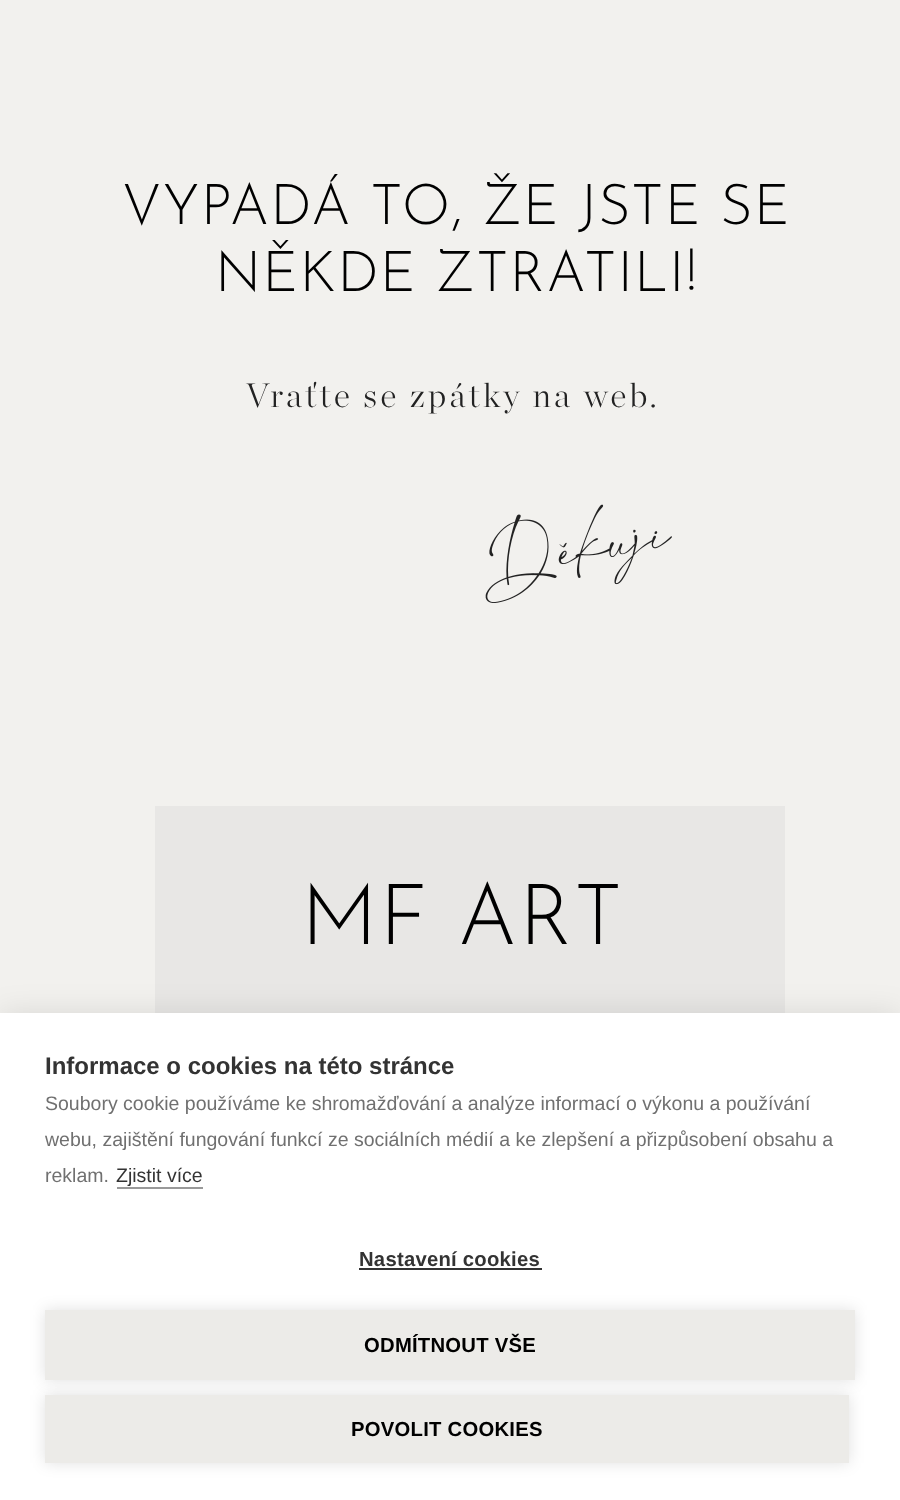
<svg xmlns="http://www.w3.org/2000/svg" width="900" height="1500">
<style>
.a{font:100 56.25px Josefin Sans;letter-spacing:1.1px;fill:#000}
.b{font:300 33.75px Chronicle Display;letter-spacing:3.4px;fill:#222}
.c{font:100 84.5px Josefin Sans;letter-spacing:1.75px;fill:#000}
.d{font:bold 24px Liberation Sans;fill:#333}
.e{font:19.5px Liberation Sans;fill:#707070}
.f{font:19.5px Liberation Sans;fill:#333}
.g{font:bold 20.25px Liberation Sans;letter-spacing:0.25px;fill:#333}
.h{font:bold 20.25px Liberation Sans;letter-spacing:0.25px;fill:#000}
</style>
<rect width="100%" height="100%" fill="#f2f1ee"/>
<image href="1.png" x="485" y="504" width="187" height="99"/>
<path fill="#e8e7e5" d="M155 806h630v207H155z"/>
<path fill="#0000001a" filter="blur(15px)" d="M0 1013h900v487H0z"/>
<path fill="#fff" d="M0 1013h900v487H0z"/>
<path fill="#999" d="M117 1187h86v2H117z"/>
<path fill="#333" d="M359 1268h183v2H359z"/>
<path fill="#0000001f" filter="blur(7.5px)" d="M45 1310h810v70H45z"/>
<path fill="#ecebe8" d="M45 1310h810v70H45z"/>
<path fill="#0000001f" filter="blur(7.5px)" d="M45 1395h804v68H45z"/>
<path fill="#ecebe8" d="M45 1395h804v68H45z"/>
<text class="a" x="122" y="224">VYPADÁ TO, ŽE JSTE SE</text>
<text class="a" x="215" y="291">NĚKDE ZTRATILI!</text>
<text class="b" x="246" y="407">Vraťte se zpátky na web.</text>
<text class="c" x="301" y="944">MF ART</text>
<text class="d" x="45" y="1074">Informace o cookies na této stránce</text>
<text class="e" x="45" y="1110">Soubory cookie používáme ke shromažďování a analýze informací o výkonu a používání</text>
<text class="e" x="45" y="1146">webu, zajištění fungování funkcí ze sociálních médií a ke zlepšení a přizpůsobení obsahu a</text>
<text class="e" x="45" y="1182">reklam.</text>
<text class="f" x="116" y="1182">Zjistit více</text>
<text class="g" x="359" y="1266">Nastavení cookies</text>
<text class="h" x="364" y="1352">ODMÍTNOUT VŠE</text>
<text class="h" x="351" y="1436">POVOLIT COOKIES</text>
</svg>
